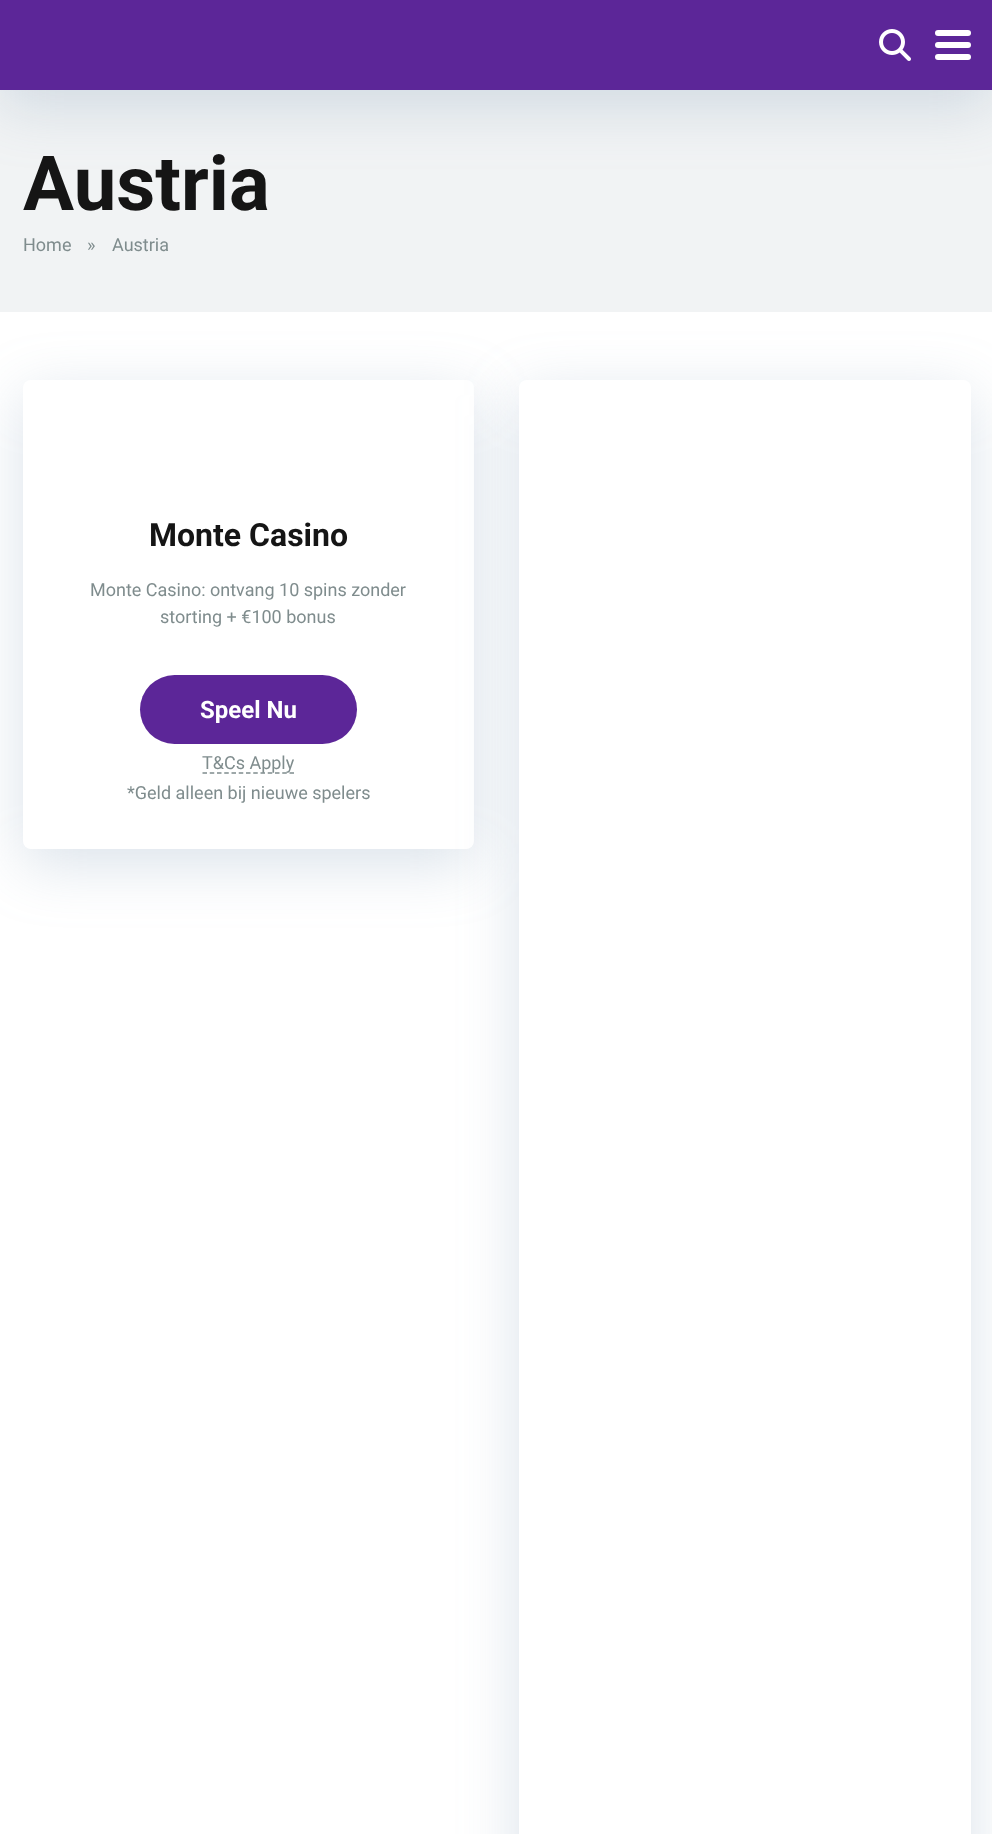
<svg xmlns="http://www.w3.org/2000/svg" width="992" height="1834">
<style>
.a{font:bold 76px Roboto;fill:#151515}
.b{font:18px Roboto;fill:#7f8c8d}
.c{font:bold 32px Roboto;fill:#151515}
.d{font:bold 24px Roboto;fill:#fff}
</style>
<rect width="100%" height="100%" fill="#fff"/>
<path fill="#f1f3f4" d="M0 90h992v222H0z"/>
<path fill="#6d8dad40" filter="blur(30px)" d="M0 15h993v90H0z"/>
<path fill="#5c2698" d="M0 0h992v90H0z"/>
<image href="1.png" x="879" y="29" width="32" height="32"/>
<rect fill="#fff" x="935" y="30" width="36" height="6" rx="3"/>
<rect fill="#fff" x="935" y="42" width="36" height="6" rx="3"/>
<rect fill="#fff" x="935" y="54" width="36" height="6" rx="3"/>
<rect fill="#6d8dad40" filter="blur(30px)" x="23" y="395" width="451" height="469" rx="8"/>
<rect fill="#fff" x="23" y="380" width="451" height="469" rx="8"/>
<rect fill="#5c2698" x="140" y="675" width="217" height="69" rx="34.5"/>
<path fill="none" stroke="#7f8c8d" stroke-width="1.5" stroke-dasharray="4.5 2.75" d="M202.5 773h91.5"/>
<rect fill="#6d8dad40" filter="blur(30px)" x="519" y="395" width="452" height="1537" rx="8"/>
<rect fill="#fff" x="519" y="380" width="452" height="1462" rx="8"/>
<text class="a" x="23" y="210">Austria</text>
<text class="b" x="23" y="251">Home</text>
<text class="b" x="87" y="251">»</text>
<text class="b" x="112" y="251">Austria</text>
<text class="c" x="149" y="546">Monte Casino</text>
<text class="b" x="90" y="596">Monte Casino: ontvang 10 spins zonder</text>
<text class="b" x="160" y="623">storting + €100 bonus</text>
<text class="d" x="200" y="718">Speel Nu</text>
<text class="b" x="202" y="769">T&amp;Cs Apply</text>
<text class="b" x="127" y="799">*Geld alleen bij nieuwe spelers</text>
</svg>
